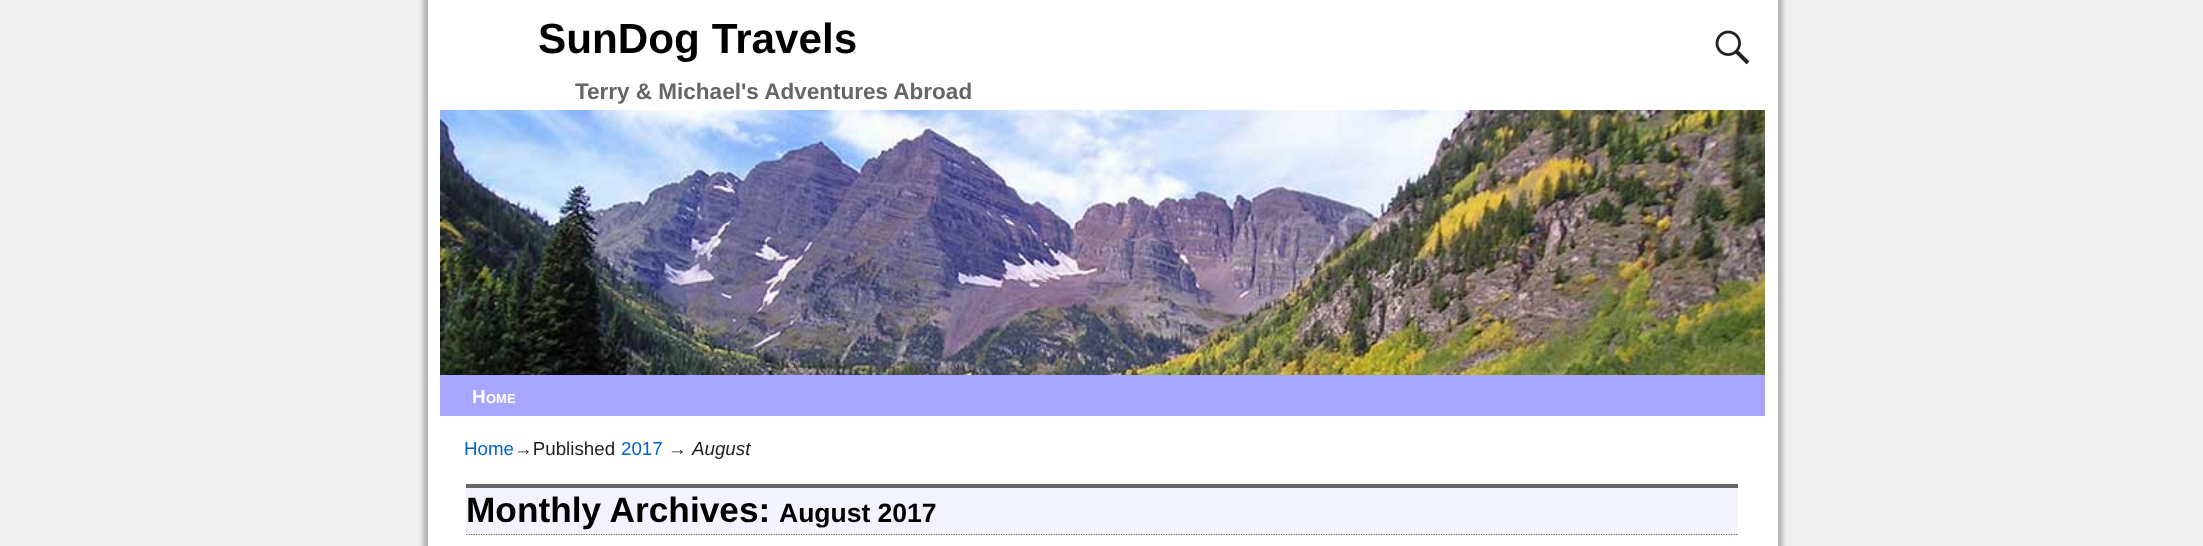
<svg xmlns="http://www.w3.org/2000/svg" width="2203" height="546">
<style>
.a{font:bold 42.25px Liberation Sans;fill:#000}
.b{font:bold 22.5px Liberation Sans;fill:#666}
.c{font:bold 18.75px Liberation Sans;fill:#fff}
.d{font:bold 13px Liberation Sans;fill:#fff}
.e{font:18.75px Liberation Sans;fill:#06c}
.f{font:18.75px Liberation Sans;fill:#1f1f1f}
.g{font:italic 18.75px Liberation Sans;fill:#1f1f1f}
.h{font:bold 35.25px Liberation Sans;fill:#000}
.i{font:bold 26.5px Liberation Sans;fill:#000}
</style>
<rect width="100%" height="100%" fill="#f1f1f1"/>
<path fill="#00000040" filter="blur(2px)" d="M423 -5h1360v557H423z"/>
<path fill="#fff" d="M428 0h1350v546H428z"/>
<image href="1.png" x="1715" y="30" width="35" height="35"/>
<image href="2.png" x="440" y="110" width="1325" height="265"/>
<path fill="#a6a6ff" d="M440 375h1325v41H440z"/>
<path fill="#f3f3ff" d="M466 488h1272v47H466z"/>
<path fill="#666" d="M466 484h1272v4H466z"/>
<path fill="none" stroke="#666" stroke-width="1.2" stroke-dasharray="1.25 1.25" d="M466 534.5h1271.5"/>
<text class="a" x="538" y="53">SunDog Travels</text>
<text class="b" x="575" y="99">Terry &amp; Michael's Adventures Abroad</text>
<text class="c" x="472" y="403">H</text>
<text class="d" x="486" y="403">OME</text>
<text class="e" x="464" y="455">Home</text>
<text class="f" x="514" y="455">→Published</text>
<text class="e" x="621" y="455">2017</text>
<text class="f" x="668" y="455">→</text>
<text class="g" x="692" y="455">August</text>
<text class="h" x="466" y="522">Monthly Archives:</text>
<text class="i" x="779" y="522">August 2017</text>
</svg>
